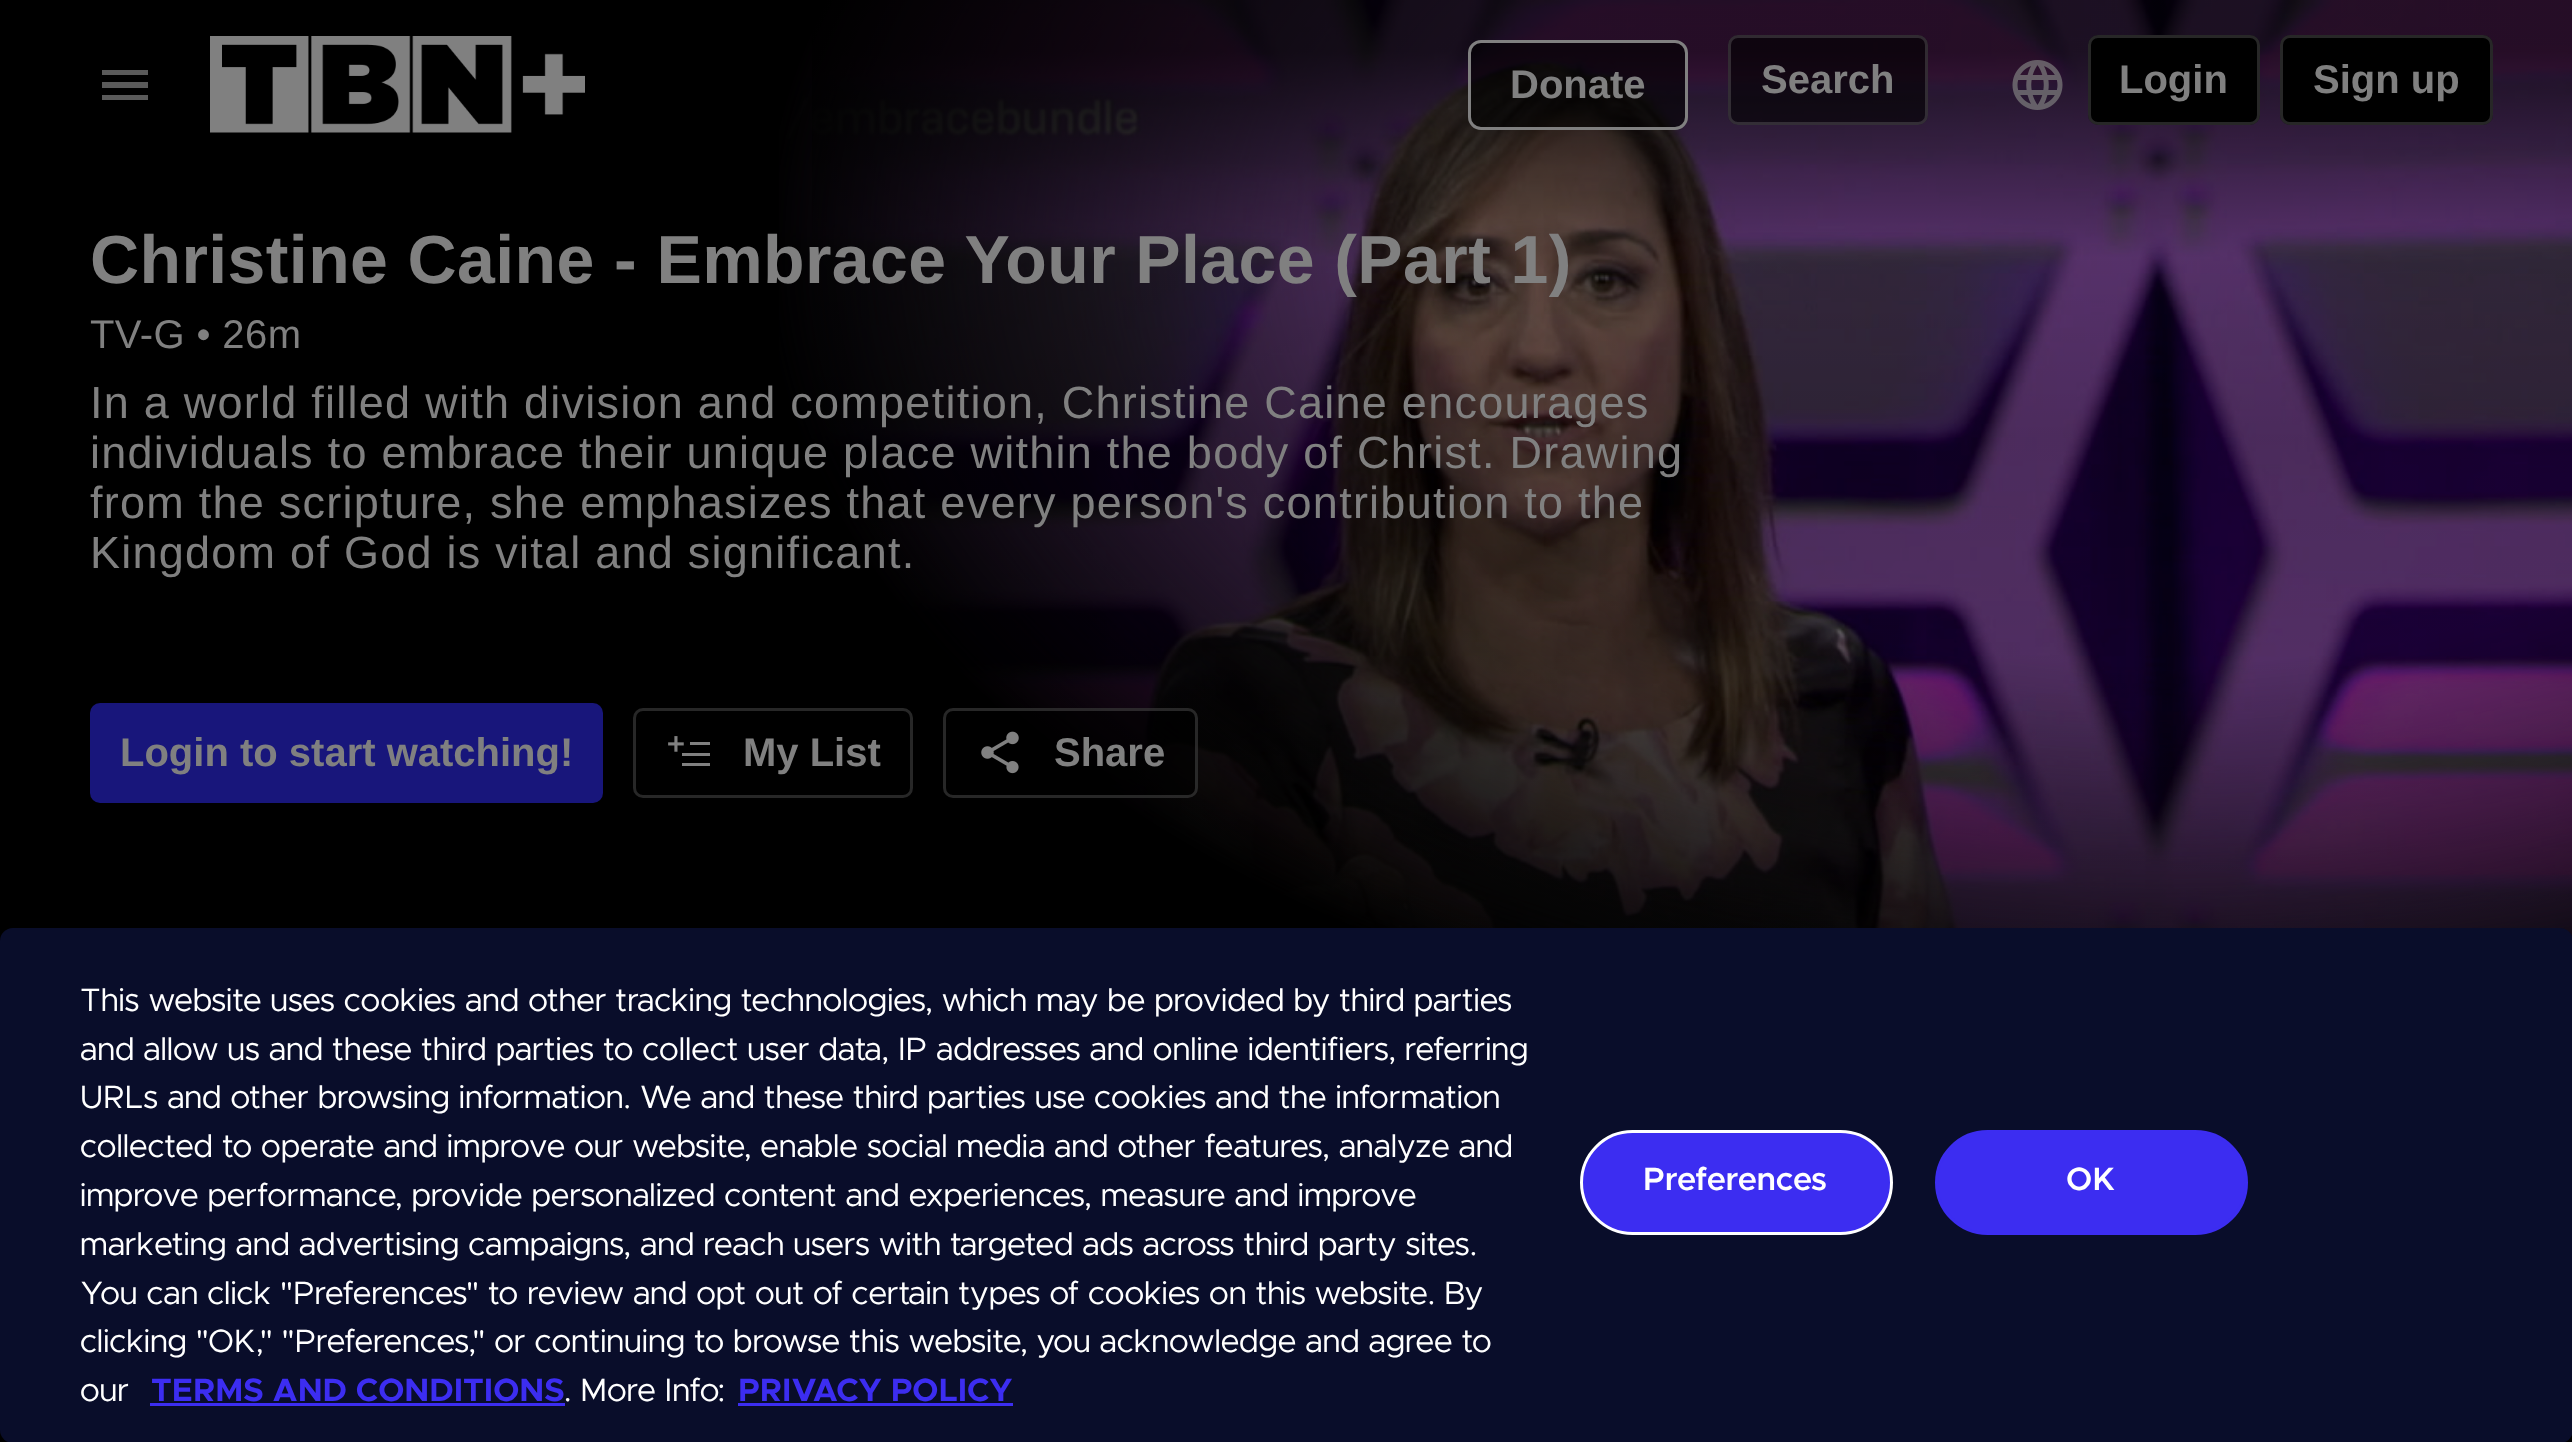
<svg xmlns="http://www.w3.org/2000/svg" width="2572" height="1442">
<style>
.a{font:bold 40px Liberation Sans;fill:#808080}
.b{font:bold 68px Liberation Sans;letter-spacing:0.4px;fill:#808080}
.c{font:40px Liberation Sans;letter-spacing:0.4px;fill:#808080}
.d{font:45px Liberation Sans;letter-spacing:1.25px;fill:#808080}
.e{font:32.5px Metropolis;fill:#fff}
.f{font:bold 32.5px Metropolis;fill:#3c2df1}
.g{font:600 32.5px Metropolis;letter-spacing:0.25px;fill:#fff}
</style>
<defs>
<linearGradient id="g1" gradientUnits="userSpaceOnUse" x1="1286" y1="0" x2="1286" y2="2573"><stop offset="0.02" stop-color="#000" stop-opacity="0.7"/><stop offset="0.1" stop-color="#000" stop-opacity="0.1"/><stop offset="0.17" stop-color="#000" stop-opacity="0.2"/><stop offset="0.5" stop-color="#000" stop-opacity="0"/><stop offset="1" stop-color="#000" stop-opacity="0"/><stop offset="1" stop-color="#000"/></linearGradient>
</defs>
<rect width="100%" height="100%" fill="#000"/>
<path fill="#5a5a5a" d="M102 100h46v-5h-46zm0-12h46v-6h-46zm0-18v5h46v-5z"/>
<image href="1.png" x="210" y="36" width="375" height="97"/>
<image href="3.png" x="779" y="0" width="1793" height="936"/>
<path fill="url(#g1)" d="M812 0h1760v936H812z"/>
<rect fill="#00000099" stroke="#808080" stroke-width="3" x="1469.5" y="41.5" width="217" height="87" rx="11.5"/>
<rect fill="#00000099" x="1728" y="35" width="200" height="90" rx="10"/>
<rect fill="none" stroke="#8080804d" stroke-width="3" x="1729.5" y="36.5" width="197" height="87" rx="8.5"/>
<image href="2.png" x="2012" y="60" width="51" height="50"/>
<rect fill="#000" x="2088" y="35" width="172" height="90" rx="10"/>
<rect fill="none" stroke="#8080804d" stroke-width="3" x="2089.5" y="36.5" width="169" height="87" rx="8.5"/>
<rect fill="#000" x="2280" y="35" width="213" height="90" rx="10"/>
<rect fill="none" stroke="#8080804d" stroke-width="3" x="2281.5" y="36.5" width="210" height="87" rx="8.5"/>
<rect fill="#18167b" x="90" y="703" width="513" height="100" rx="10"/>
<rect fill="none" stroke="#272727" stroke-width="3" x="634.5" y="709.5" width="277" height="87" rx="8.5"/>
<image href="4.png" x="668" y="736" width="42" height="30"/>
<rect fill="#00000099" x="943" y="708" width="255" height="90" rx="10"/>
<rect fill="none" stroke="#8080804d" stroke-width="3" x="944.5" y="709.5" width="252" height="87" rx="8.5"/>
<image href="5.png" x="981" y="731" width="38" height="43"/>
<rect fill="#090d2a" y="928" width="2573" height="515" rx="13"/>
<path fill="#3c2df1" d="M150 1403h415v3H150z"/>
<path fill="#3c2df1" d="M738 1403h275v3H738z"/>
<rect fill="#3c2df1" stroke="#fff" stroke-width="3" x="1581.5" y="1131.5" width="310" height="102" rx="51"/>
<rect fill="#3c2df1" stroke="#3c2df1" stroke-width="3" x="1936.5" y="1131.5" width="310" height="102" rx="51"/>
<text class="a" x="1510" y="98">Donate</text>
<text class="a" x="1761" y="93">Search</text>
<text class="a" x="2119" y="93">Login</text>
<text class="a" x="2313" y="93">Sign up</text>
<text class="b" x="90" y="283">Christine Caine - Embrace Your Place (Part 1)</text>
<text class="c" x="90" y="348">TV-G • 26m</text>
<text class="d" x="90" y="418">In a world filled with division and competition, Christine Caine encourages</text>
<text class="d" x="90" y="468">individuals to embrace their unique place within the body of Christ. Drawing</text>
<text class="d" x="90" y="518">from the scripture, she emphasizes that every person's contribution to the</text>
<text class="d" x="90" y="568">Kingdom of God is vital and significant.</text>
<text class="a" x="120" y="766">Login to start watching!</text>
<text class="a" x="743" y="766">My List</text>
<text class="a" x="1054" y="766">Share</text>
<text class="e" x="80" y="1011">This website uses cookies and other tracking technologies, which may be provided by third parties</text>
<text class="e" x="80" y="1060">and allow us and these third parties</text>
<text class="e" x="603" y="1060">to collect user data, IP addresses and online identifiers, referring</text>
<text class="e" x="80" y="1108">URLs and other browsing information. We and these third parties use cookies and the information</text>
<text class="e" x="80" y="1157">collected to operate and improve our website, enable social media and other features, analyze and</text>
<text class="e" x="80" y="1206">improve performance, provide personalized content and experiences, measure and improve</text>
<text class="e" x="80" y="1255">marketing and advertising campaigns, and reach users with targeted ads across third party sites.</text>
<text class="e" x="80" y="1304">You can click "Preferences" to review and opt out of certain types of cookies on this website. By</text>
<text class="e" x="80" y="1352">clicking "OK," "Preferences," or continuing to browse this website, you acknowledge and agree to</text>
<text class="e" x="80" y="1401">our</text>
<text class="f" x="151" y="1401">TERMS AND CONDITIONS</text>
<text class="e" x="564" y="1401">. More Info:</text>
<text class="f" x="738" y="1401">PRIVACY POLICY</text>
<text class="g" x="1643" y="1190">Preferences</text>
<text class="g" x="2066" y="1190">OK</text>
</svg>
